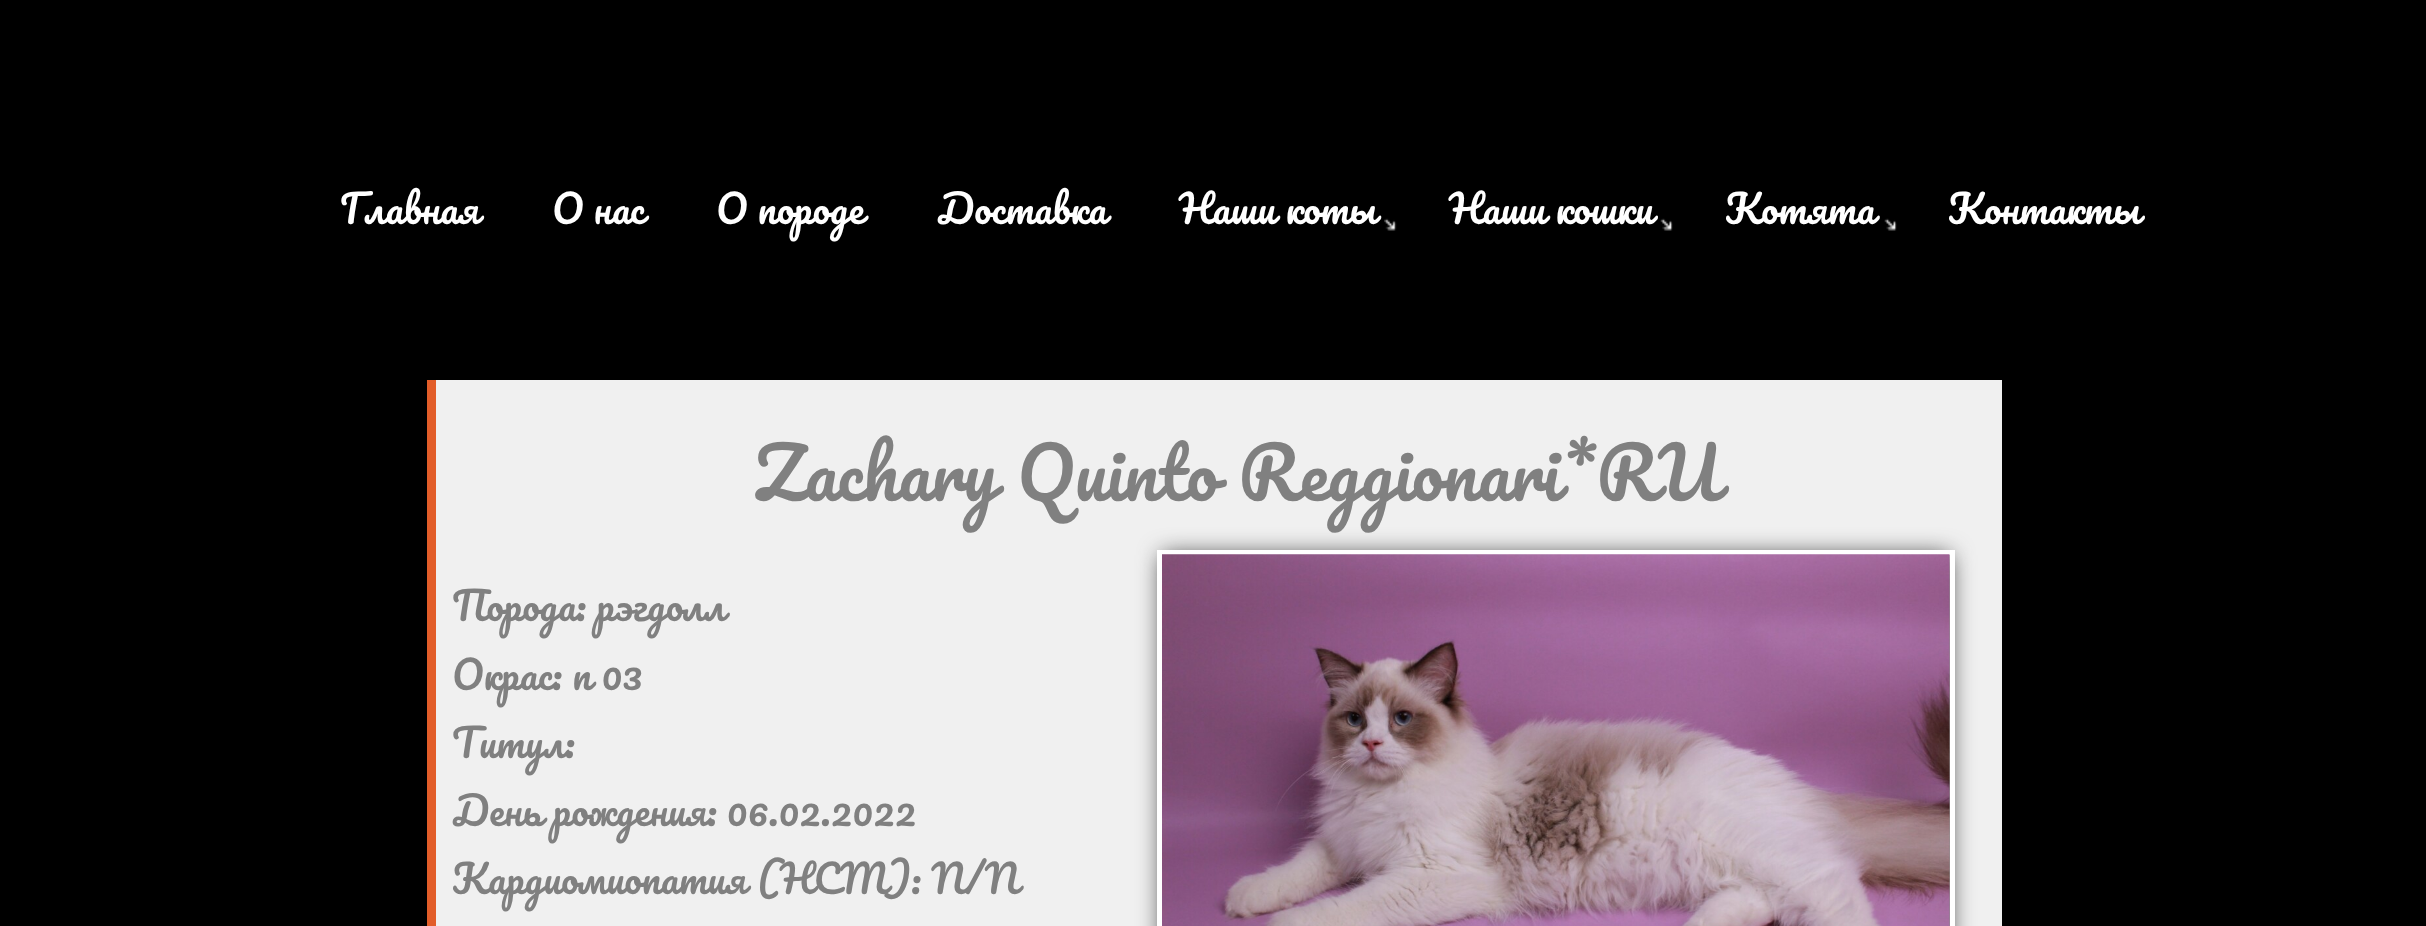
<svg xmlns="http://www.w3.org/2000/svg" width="2426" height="926">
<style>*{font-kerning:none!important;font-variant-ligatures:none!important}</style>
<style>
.a{font:38.5px Pacifico;fill:#fff}
.b{font:70px Pacifico;fill:#808080}
.c{font:38.5px Pacifico;fill:#808080}
</style>
<rect width="100%" height="100%" fill="#000"/>
<image href="1.png" x="1384" y="218" width="13" height="13"/>
<image href="2.png" x="1660" y="218" width="13" height="13"/>
<image href="3.png" x="1884" y="218" width="13" height="13"/>
<path fill="#f0f0f0" d="M436 380h1566v546H436z"/>
<path fill="#e25d29" d="M427 380h9v546H427z"/>
<path fill="#333" filter="blur(11.5px)" d="M1162 555h788v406H1162z"/>
<path fill="none" stroke="#fff" stroke-width="5" d="M1159.5 552.5h793v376H1159.5z"/>
<image href="4.png" x="1162" y="554" width="788" height="372"/>
<text class="a" x="340" y="224">Главная</text>
<text class="a" x="552" y="224">О нас</text>
<text class="a" x="716" y="224">О породе</text>
<text class="a" x="937" y="224">Доставка</text>
<text class="a" x="1179" y="224">Наши коты</text>
<text class="a" x="1449" y="224">Наши кошки</text>
<text class="a" x="1725" y="224">Котята</text>
<text class="a" x="1948" y="224">Контакты</text>
<text class="b" x="754" y="501" word-spacing="2">Zachary Quinto Reggionari*RU</text>
<text class="c" x="452" y="621">Порода: рэгдолл</text>
<text class="c" x="452" y="690">Окрас: n 03</text>
<text class="c" x="452" y="758">Титул:</text>
<text class="c" x="452" y="826">День рождения: 06.02.2022</text>
<text class="c" x="452" y="894">Кардиомиопатия (HCM): N/N</text>
</svg>
